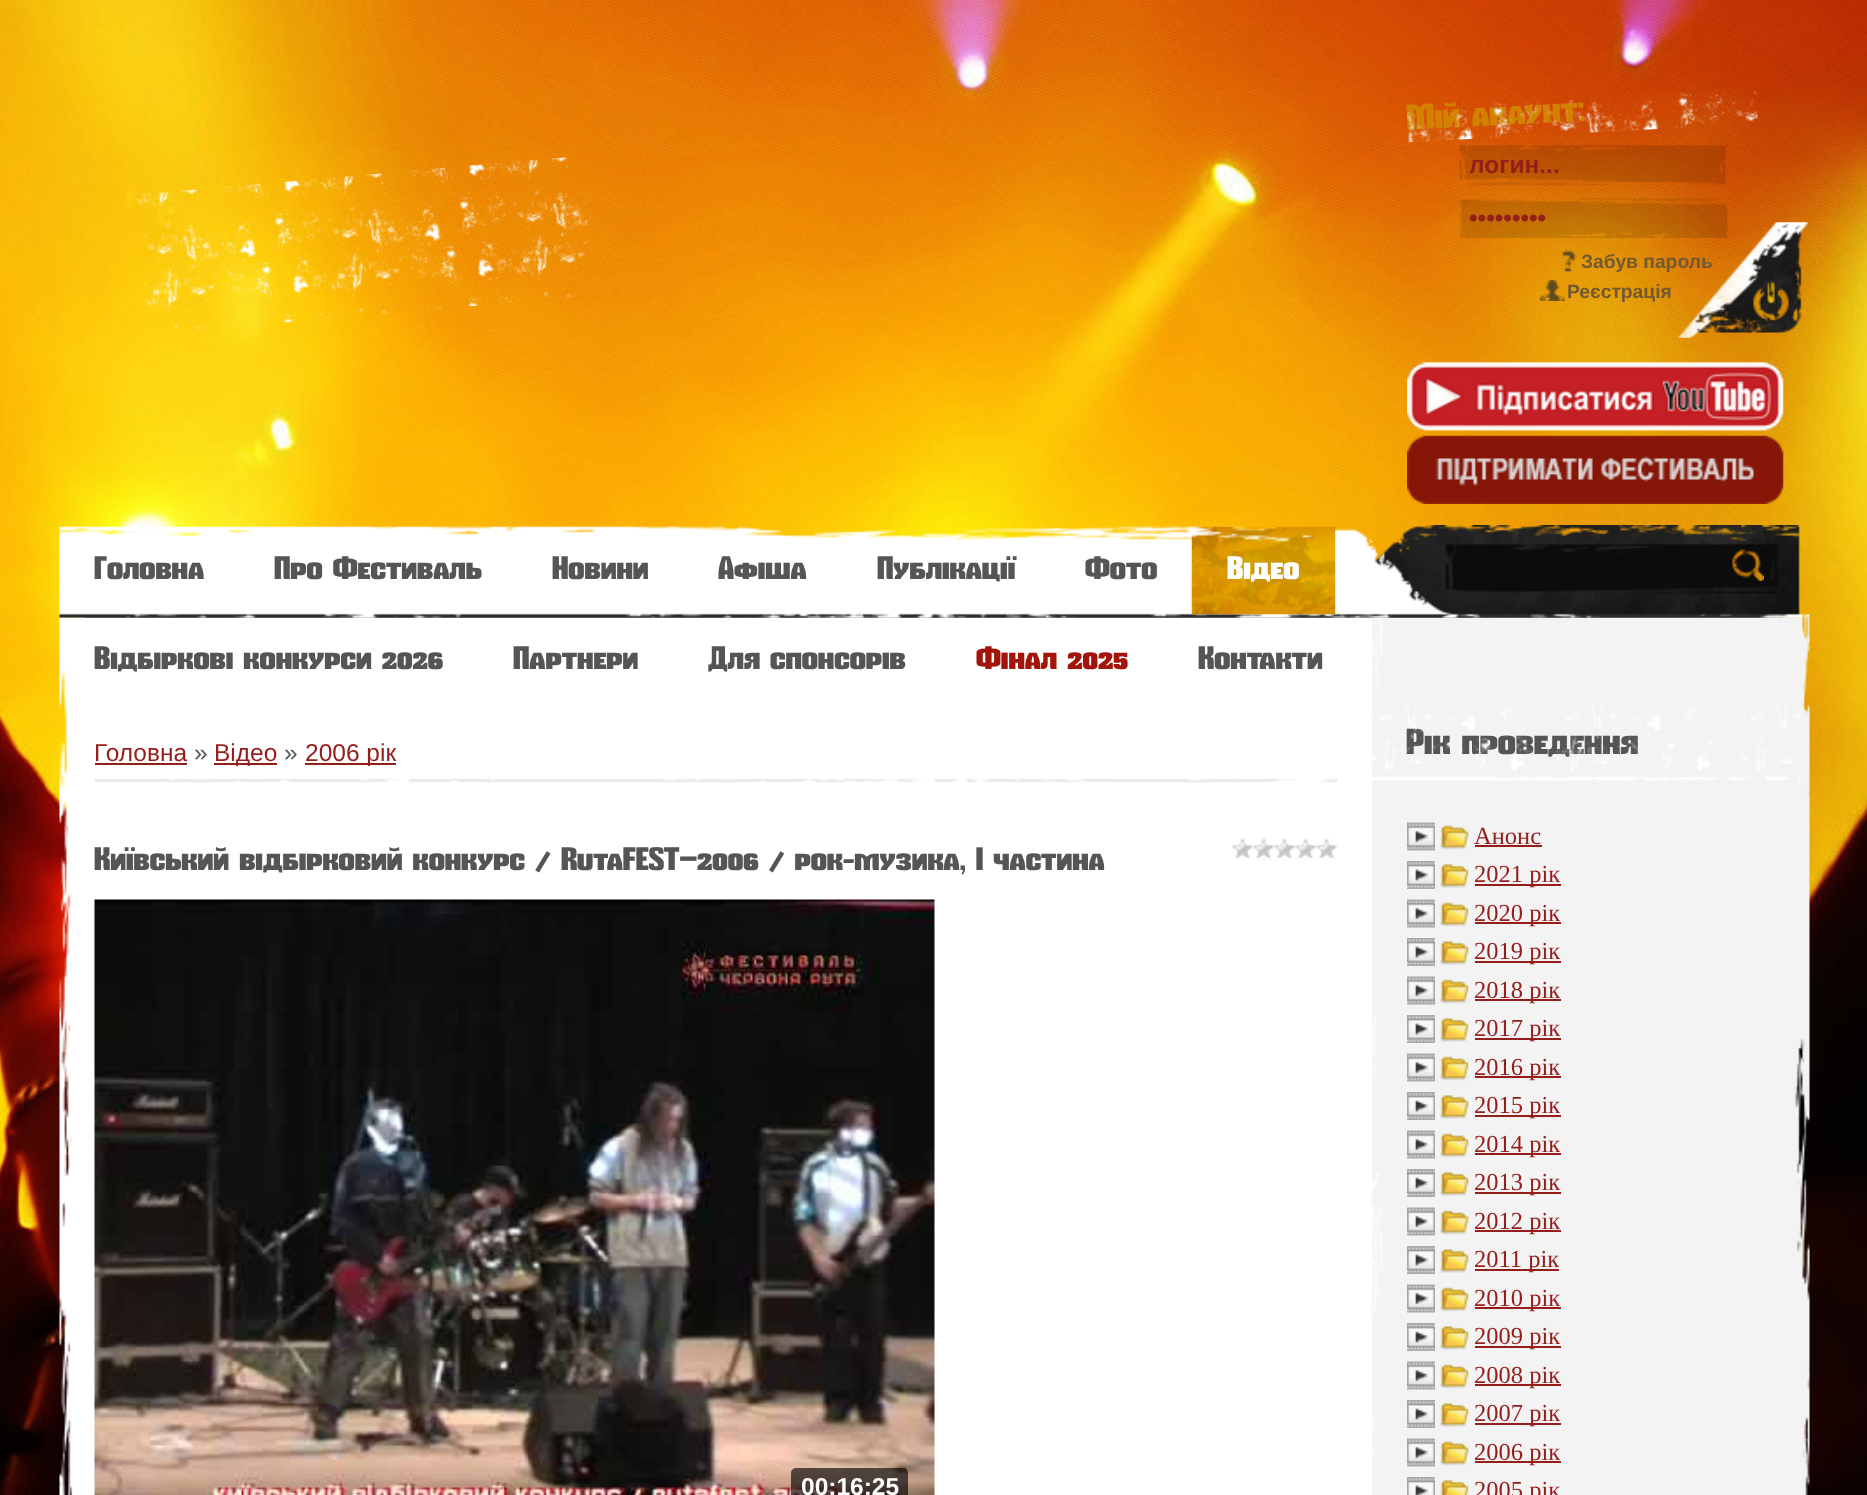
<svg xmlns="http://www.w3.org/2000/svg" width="1867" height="1495">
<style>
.a{font:900 35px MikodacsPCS;fill:#d28100}
.b{font:bold 24.5px Liberation Sans;fill:#951d1a}
.c{font:bold 19.25px Liberation Sans;fill:#735931}
.d{font:900 31.5px MikodacsPCS;fill:#555}
.e{font:900 31.5px MikodacsPCS;fill:#fff}
.f{font:900 31.5px MikodacsPCS;fill:#a3140a}
.g{font:24.5px Liberation Sans;fill:#951d1a}
.h{font:24.5px Liberation Sans;fill:#555}
.i{font:bold 24.5px Liberation Sans;fill:#fff}
.j{font:900 35px MikodacsPCS;fill:#555}
.k{font:24.5px Liberation Serif;fill:#951d1a}
</style>
<defs>
<clipPath id="clip1"><path d="M1470 145h247v41H1470z"/></clipPath>
</defs>
<rect width="100%" height="100%" fill="#fff"/>
<image href="1.png" x="0" y="0" width="1867" height="1495"/>
<image href="2.png" x="135" y="156" width="458" height="177"/>
<image href="4.png" x="1459" y="145" width="267" height="41"/>
<image href="5.png" x="1459" y="198" width="269" height="40"/>
<image href="6.png" x="1562" y="250" width="15" height="22"/>
<image href="7.png" x="1540" y="280" width="25" height="21"/>
<image href="8.png" x="1678" y="222" width="130" height="116"/>
<image href="9.png" x="1753" y="281" width="36" height="40"/>
<image href="10.png" x="1407" y="362" width="377" height="69"/>
<image href="11.png" x="1407" y="435" width="377" height="69"/>
<image href="12.png" x="59" y="525" width="1751" height="93"/>
<image href="13.png" x="1191" y="526" width="145" height="89"/>
<image href="14.png" x="1732" y="549" width="32" height="32"/>
<image href="15.png" x="59" y="617" width="1751" height="878"/>
<path fill="#951d1a" d="M95 763h92v2H95z"/>
<path fill="#951d1a" d="M214 763h63v2H214z"/>
<path fill="#951d1a" d="M305 763h91v2H305z"/>
<image href="16.png" x="94" y="778" width="1243" height="5"/>
<image href="17.png" x="1232" y="838" width="105" height="22"/>
<image href="18.png" x="94" y="899" width="841" height="596"/>
<rect fill="#000000a1" x="791" y="1468" width="117" height="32" rx="5"/>
<image href="19.png" x="1372" y="777" width="429" height="4"/>
<image href="21.png" x="1407" y="822" width="28" height="29"/>
<image href="22.png" x="1440" y="825" width="29" height="25"/>
<path fill="#951d1a" d="M1475 845h67v2H1475z"/>
<image href="23.png" x="1407" y="861" width="28" height="28"/>
<image href="24.png" x="1440" y="864" width="29" height="24"/>
<path fill="#951d1a" d="M1475 884h86v2H1475z"/>
<image href="21.png" x="1407" y="899" width="28" height="29"/>
<image href="22.png" x="1440" y="902" width="29" height="25"/>
<path fill="#951d1a" d="M1475 922h86v2H1475z"/>
<image href="23.png" x="1407" y="938" width="28" height="28"/>
<image href="24.png" x="1440" y="941" width="29" height="24"/>
<path fill="#951d1a" d="M1475 961h86v2H1475z"/>
<image href="21.png" x="1407" y="976" width="28" height="29"/>
<image href="22.png" x="1440" y="979" width="29" height="25"/>
<path fill="#951d1a" d="M1475 999h86v2H1475z"/>
<image href="23.png" x="1407" y="1015" width="28" height="28"/>
<image href="24.png" x="1440" y="1018" width="29" height="24"/>
<path fill="#951d1a" d="M1475 1038h86v2H1475z"/>
<image href="21.png" x="1407" y="1053" width="28" height="29"/>
<image href="22.png" x="1440" y="1056" width="29" height="25"/>
<path fill="#951d1a" d="M1475 1076h86v2H1475z"/>
<image href="23.png" x="1407" y="1092" width="28" height="28"/>
<image href="24.png" x="1440" y="1095" width="29" height="24"/>
<path fill="#951d1a" d="M1475 1115h86v2H1475z"/>
<image href="21.png" x="1407" y="1130" width="28" height="29"/>
<image href="22.png" x="1440" y="1133" width="29" height="25"/>
<path fill="#951d1a" d="M1475 1153h86v2H1475z"/>
<image href="23.png" x="1407" y="1169" width="28" height="28"/>
<image href="24.png" x="1440" y="1172" width="29" height="24"/>
<path fill="#951d1a" d="M1475 1192h86v2H1475z"/>
<image href="21.png" x="1407" y="1207" width="28" height="29"/>
<image href="22.png" x="1440" y="1210" width="29" height="25"/>
<path fill="#951d1a" d="M1475 1230h86v2H1475z"/>
<image href="23.png" x="1407" y="1246" width="28" height="28"/>
<image href="24.png" x="1440" y="1249" width="29" height="24"/>
<path fill="#951d1a" d="M1475 1269h84v2H1475z"/>
<image href="21.png" x="1407" y="1284" width="28" height="29"/>
<image href="22.png" x="1440" y="1287" width="29" height="25"/>
<path fill="#951d1a" d="M1475 1307h86v2H1475z"/>
<image href="23.png" x="1407" y="1323" width="28" height="28"/>
<image href="24.png" x="1440" y="1326" width="29" height="24"/>
<path fill="#951d1a" d="M1475 1346h86v2H1475z"/>
<image href="21.png" x="1407" y="1361" width="28" height="29"/>
<image href="22.png" x="1440" y="1364" width="29" height="25"/>
<path fill="#951d1a" d="M1475 1384h86v2H1475z"/>
<image href="23.png" x="1407" y="1400" width="28" height="28"/>
<image href="24.png" x="1440" y="1403" width="29" height="24"/>
<path fill="#951d1a" d="M1475 1423h86v2H1475z"/>
<image href="21.png" x="1407" y="1438" width="28" height="29"/>
<image href="22.png" x="1440" y="1441" width="29" height="25"/>
<path fill="#951d1a" d="M1475 1461h86v2H1475z"/>
<image href="25.png" x="1407" y="1477" width="28" height="18"/>
<image href="26.png" x="1440" y="1480" width="29" height="15"/>
<text class="a" x="1407" y="130" transform="rotate(-3 1407 130)">Мій акаунт:</text>
<image href="3.png" x="1407" y="90" width="351" height="53"/>
<g clip-path="url(#clip1)">
<text class="b" x="1469" y="173">логин...</text>
</g>
<text class="b" x="1469" y="226">•••••••••</text>
<text class="c" x="1581" y="268">Забув пароль</text>
<text class="c" x="1567" y="298">Реєстрація</text>
<text class="d" x="94" y="579">Головна</text>
<text class="d" x="274" y="579">Про Фестиваль</text>
<text class="d" x="552" y="579">Новини</text>
<text class="d" x="718" y="579">Афіша</text>
<text class="d" x="877" y="579">Публікації</text>
<text class="d" x="1085" y="579">Фото</text>
<text class="e" x="1227" y="579">Відео</text>
<text class="d" x="94" y="669">Відбіркові конкурси 2026</text>
<text class="d" x="513" y="669">Партнери</text>
<text class="d" x="708" y="669">Для спонсорів</text>
<text class="f" x="976" y="669">Фінал 2025</text>
<text class="d" x="1198" y="669">Контакти</text>
<text class="g" x="94" y="761">Головна</text>
<text class="h" x="194" y="761">»</text>
<text class="g" x="214" y="761">Відео</text>
<text class="h" x="284" y="761">»</text>
<text class="g" x="305" y="761">2006 рік</text>
<text class="d" x="94" y="870">Київський відбірковий конкурс / RutaFEST–2006 / рок-музика, I частина</text>
<text class="i" x="801" y="1495">00:16:25</text>
<text class="j" x="1406" y="754">Рік проведення</text>
<image href="20.png" x="1372" y="704" width="429" height="69"/>
<text class="k" x="1474" y="844">Анонс</text>
<text class="k" x="1474" y="882">2021 рік</text>
<text class="k" x="1474" y="921">2020 рік</text>
<text class="k" x="1474" y="959">2019 рік</text>
<text class="k" x="1474" y="998">2018 рік</text>
<text class="k" x="1474" y="1036">2017 рік</text>
<text class="k" x="1474" y="1075">2016 рік</text>
<text class="k" x="1474" y="1113">2015 рік</text>
<text class="k" x="1474" y="1152">2014 рік</text>
<text class="k" x="1474" y="1190">2013 рік</text>
<text class="k" x="1474" y="1229">2012 рік</text>
<text class="k" x="1474" y="1267">2011 рік</text>
<text class="k" x="1474" y="1306">2010 рік</text>
<text class="k" x="1474" y="1344">2009 рік</text>
<text class="k" x="1474" y="1383">2008 рік</text>
<text class="k" x="1474" y="1421">2007 рік</text>
<text class="k" x="1474" y="1460">2006 рік</text>
<text class="k" x="1474" y="1498">2005 рік</text>
</svg>
